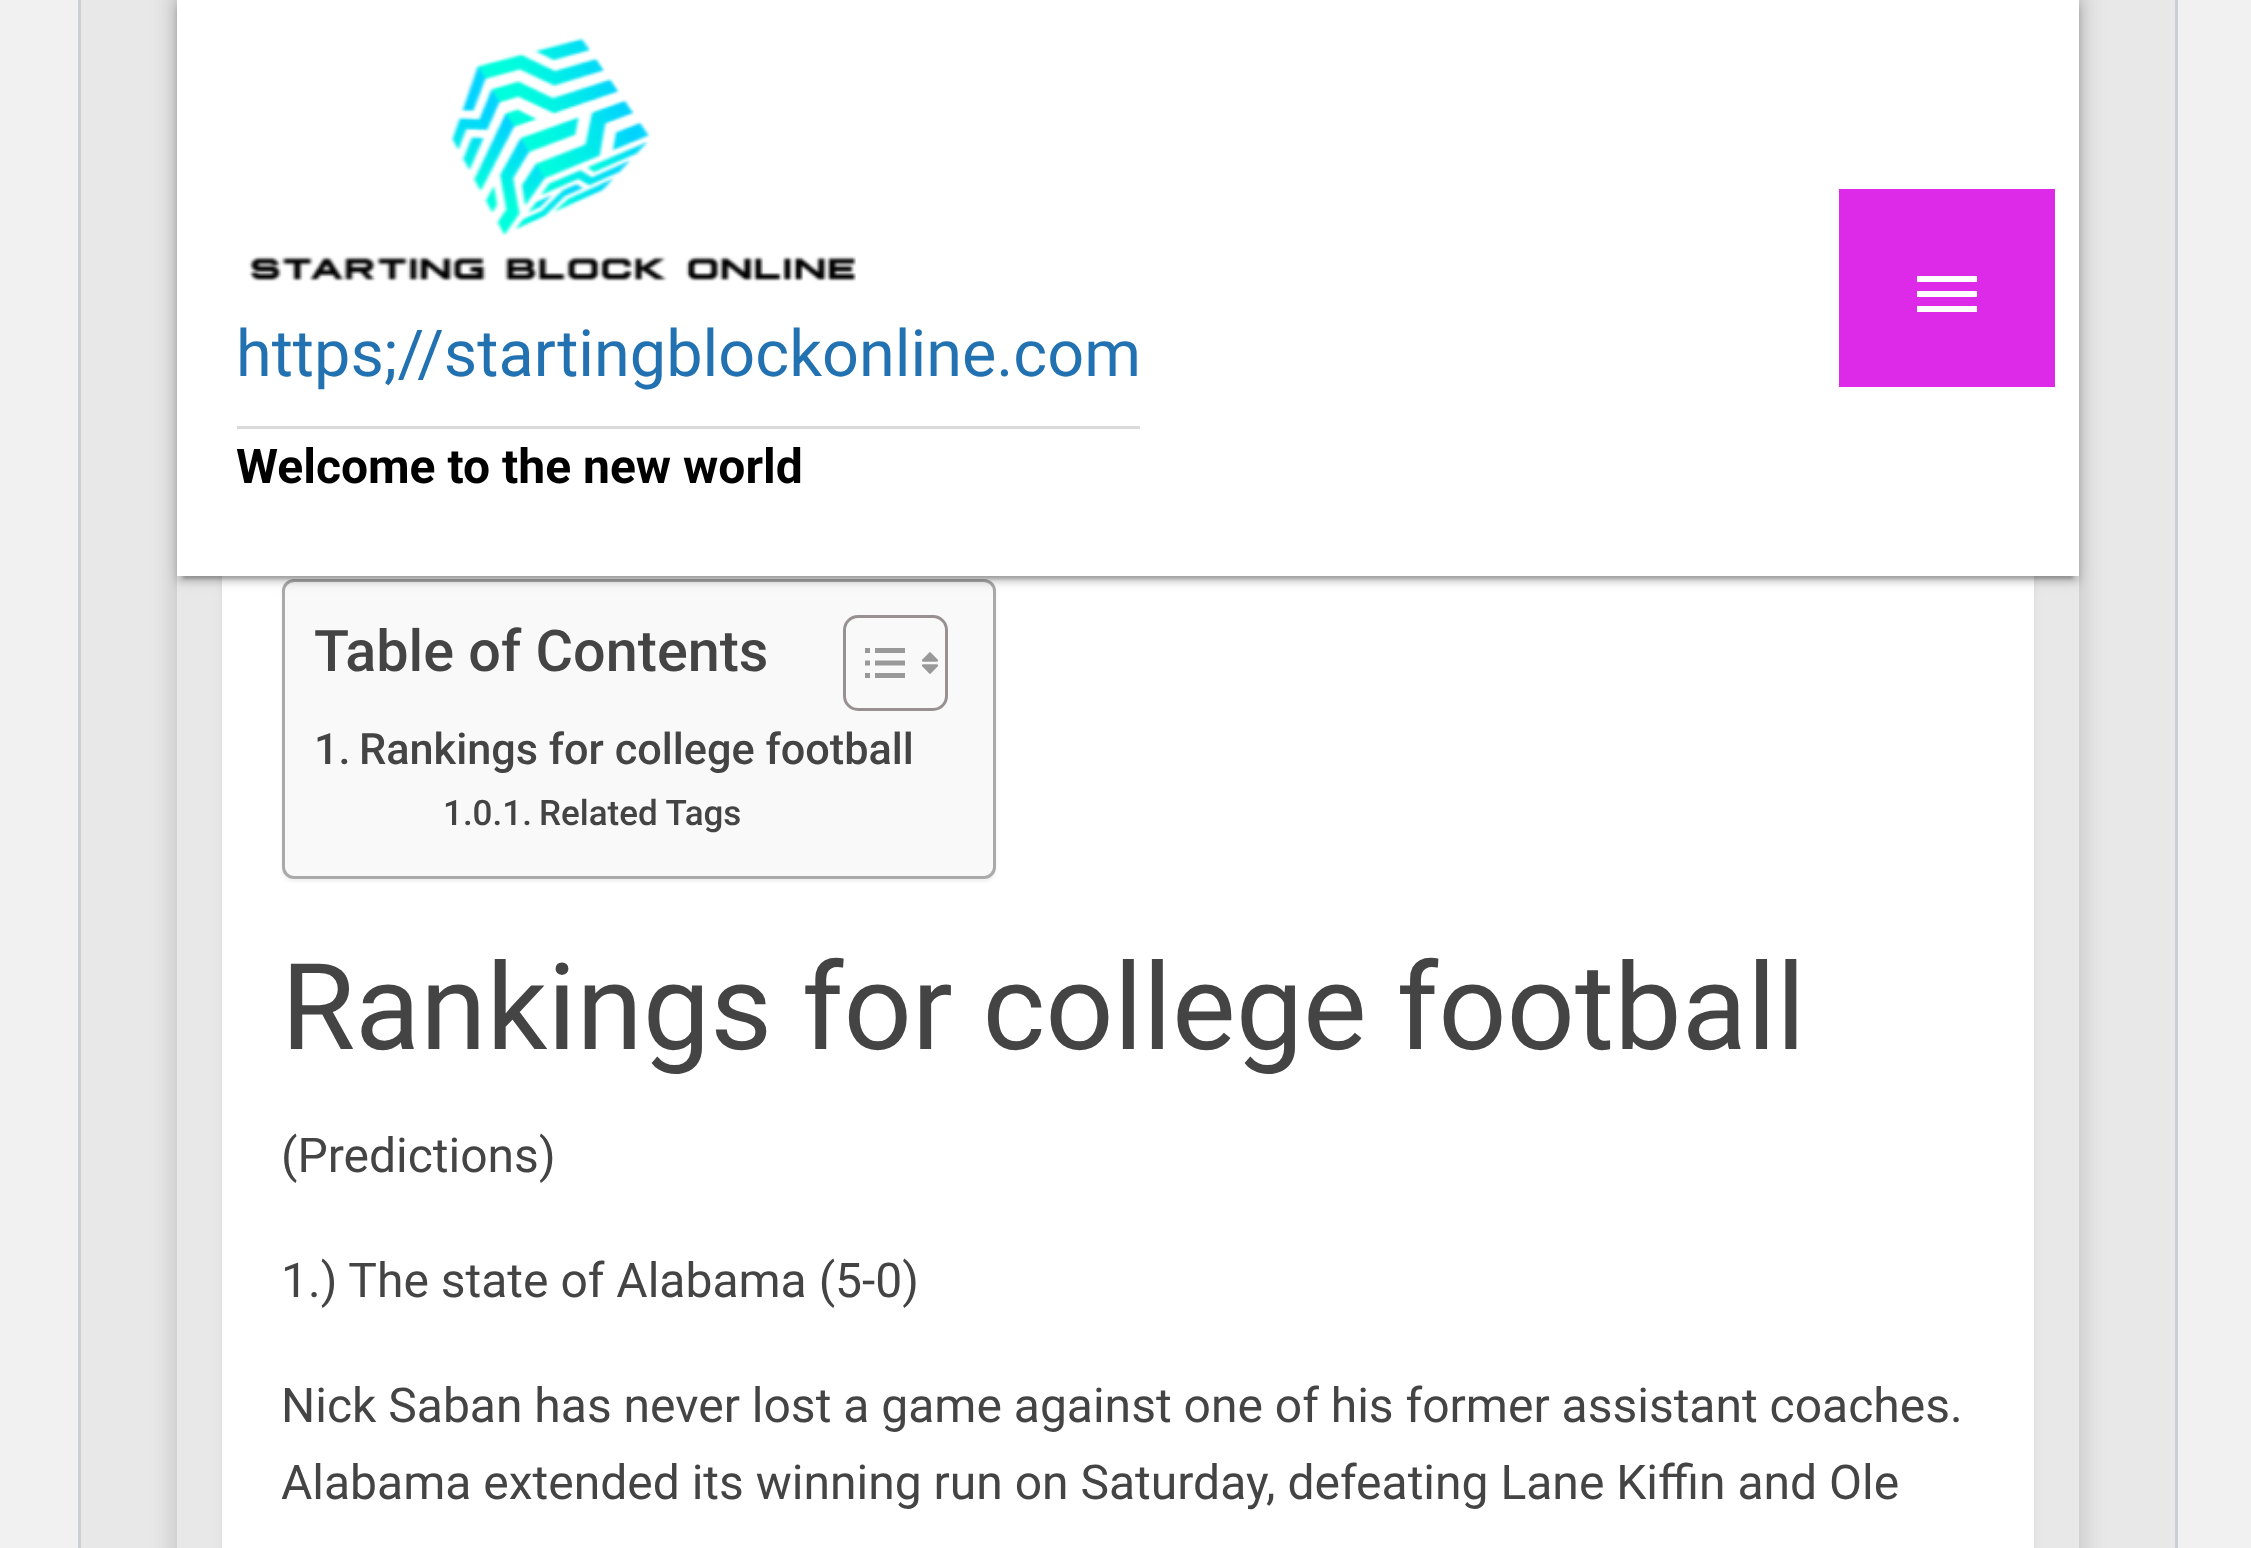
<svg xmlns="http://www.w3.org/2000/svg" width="2251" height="1548">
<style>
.a{font:64.75px Roboto;fill:#2271b1}
.b{font:bold 48px Roboto;fill:#000}
.c{font:500 57.5px Roboto;fill:#444}
.d{font:500 43.25px Roboto;fill:#444}
.e{font:500 35px Roboto;fill:#444}
.f{font:120px Roboto;fill:#444}
.g{font:48px Roboto;fill:#444}
</style>
<defs>
<clipPath id="clip1"><path d="M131 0h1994v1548h-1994zm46-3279h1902v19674h-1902z" clip-rule="evenodd"/></clipPath>
<clipPath id="clip2"><path d="M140 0h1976v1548h-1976zm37-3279h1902v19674h-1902z" clip-rule="evenodd"/></clipPath>
</defs>
<rect width="100%" height="100%" fill="#f1f1f1"/>
<path fill="#e8e8e8" stroke="#ccd0d4" stroke-width="3" d="M79.5 -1.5h2097v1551H79.5z"/>
<g clip-path="url(#clip1)">
<path fill="#00000017" filter="blur(15px)" d="M177 -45h1902v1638H177z"/>
</g>
<g clip-path="url(#clip2)">
<path fill="#0000001a" filter="blur(12px)" d="M177 -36h1902v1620H177z"/>
</g>
<path fill="#1c1c1c0d" filter="blur(4.5px)" d="M222 -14h1812v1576H222z"/>
<path fill="#fff" d="M222 576h1812v972H222z"/>
<rect fill="#0000000d" filter="blur(1.5px)" x="282" y="582" width="714" height="300" rx="12"/>
<rect fill="#f9f9f9" stroke="#aaa" stroke-width="3" x="283.5" y="580.5" width="711" height="297" rx="10.5"/>
<path fill="#0000001f" filter="blur(7.5px)" d="M177 3h1902v576H177z"/>
<path fill="#00000033" filter="blur(1.5px)" d="M183 15h1890v564H183z"/>
<path fill="#00000024" filter="blur(3px)" d="M177 6h1902v576H177z"/>
<path fill="#fff" d="M177 0h1902v576H177z"/>
<path fill="#dd2ae9" d="M1839 189h216v198H1839z"/>
<path fill="#fff" d="M1917 276h60v6H1917z"/>
<path fill="#fff" d="M1917 291h60v6H1917z"/>
<path fill="#fff" d="M1917 306h60v6H1917z"/>
<image href="1.png" x="248" y="37" width="608" height="245"/>
<path fill="#dadada" d="M237 426h903v3H237z"/>
<rect fill="none" stroke="#999191" stroke-width="3" x="844.5" y="616.5" width="102" height="93" rx="13.5"/>
<image href="2.png" x="865" y="648" width="40" height="30"/>
<image href="3.png" x="921" y="652" width="18" height="22"/>
<text class="a" x="236" y="376">https;//startingblockonline.com</text>
<text class="b" x="236" y="483">Welcome to the new world</text>
<text class="c" x="314" y="671">Table of Contents</text>
<text class="d" x="314" y="764">1.</text>
<text class="d" x="359" y="764">Rankings for college football</text>
<text class="e" x="443" y="825">1.0.1.</text>
<text class="e" x="539" y="825">Related Tags</text>
<text class="f" x="281" y="1049">Rankings for college football</text>
<text class="g" x="281" y="1172">(Predictions)</text>
<text class="g" x="281" y="1297">1.) The state of Alabama (5-0)</text>
<text class="g" x="281" y="1422">Nick Saban has never lost a game against one of his former assistant coaches.</text>
<text class="g" x="281" y="1499">Alabama extended its winning run on Saturday, defeating Lane Kiffin and Ole</text>
</svg>
